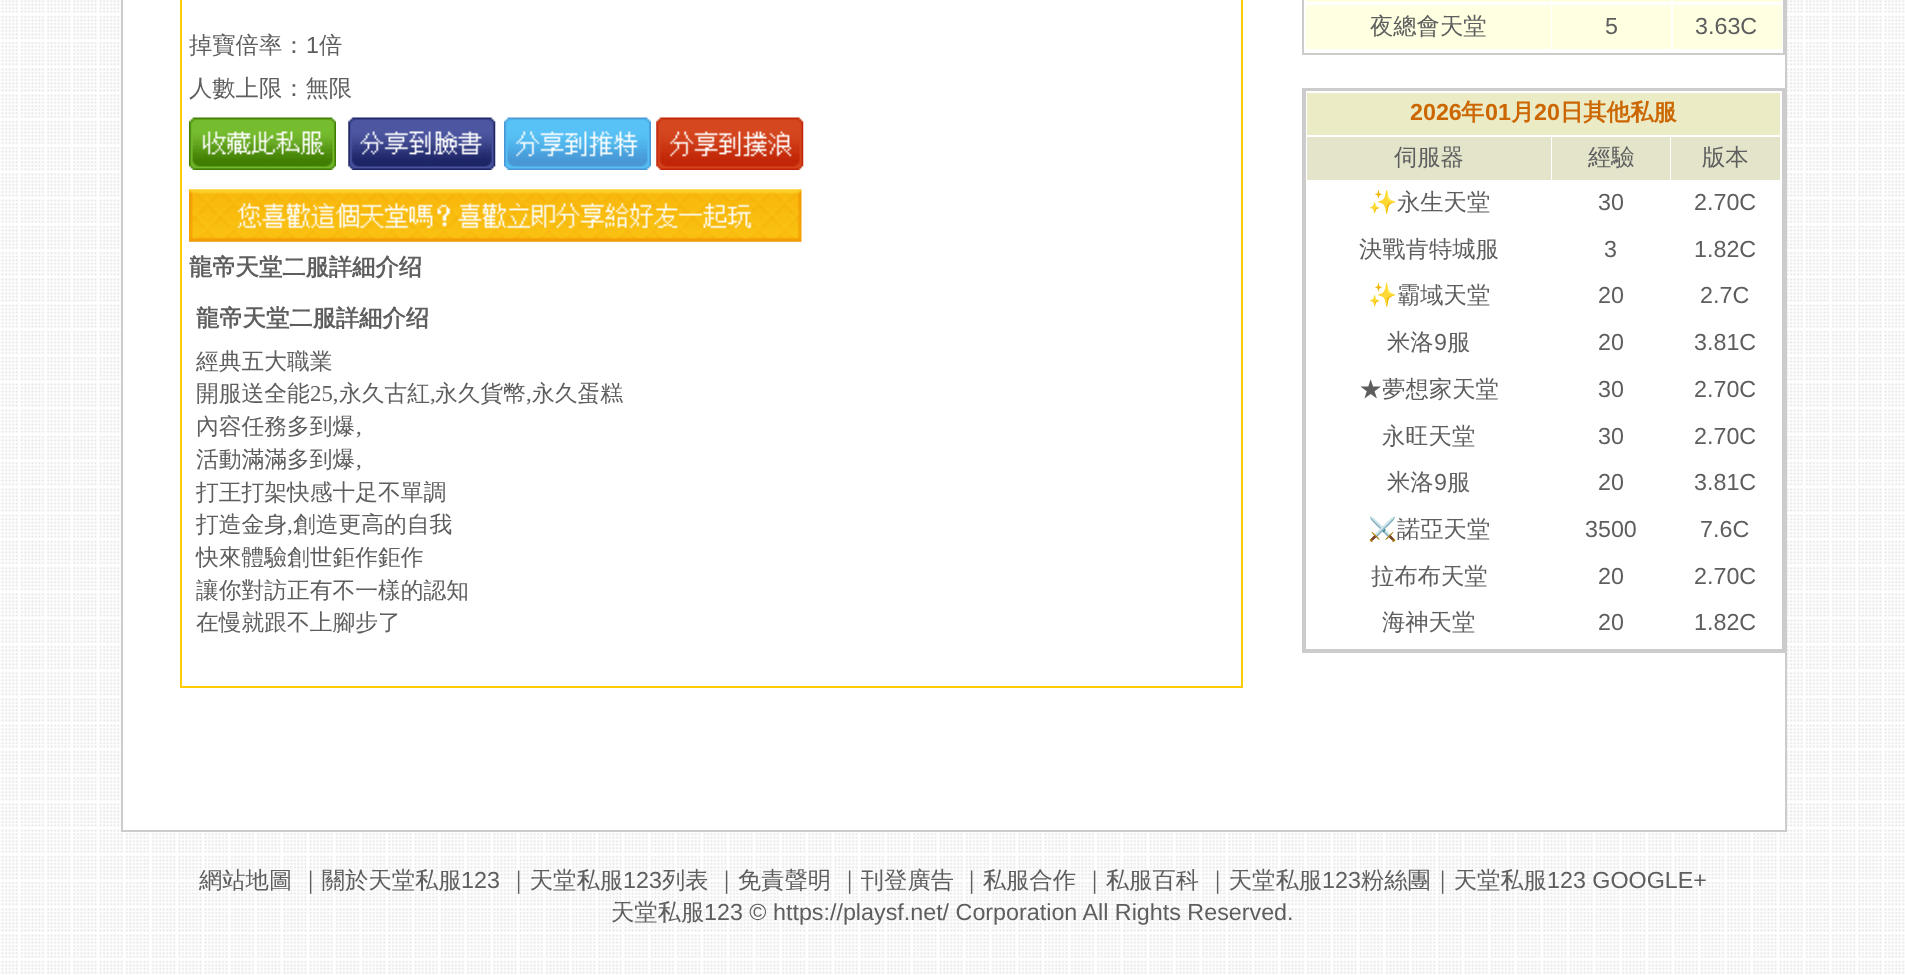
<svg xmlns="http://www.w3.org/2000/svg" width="1905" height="975">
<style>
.a{font:500 23.3px WenQuanYi Zen Hei;fill:#5e5e5e}
.b{font:23.3px Liberation Sans;fill:#5e5e5e}
.c{font:bold 23.3px WenQuanYi Zen Hei;fill:#5e5e5e}
.d{font:500 22.75px WenQuanYi Zen Hei;fill:#5e5e5e}
.e{font:22.75px Liberation Serif;fill:#5e5e5e}
.f{font:bold 23.3px Liberation Sans;fill:#c60}
.g{font:bold 23.3px WenQuanYi Zen Hei;fill:#c60}
.h{font:23.3px Noto Color Emoji;fill:#5e5e5e}
</style>
<rect width="100%" height="100%" fill="#fff"/>
<image href="1.png" x="0" y="0" width="1905" height="975"/>
<path fill="#ccc" d="M1785 0h2v831H1785z"/>
<path fill="#ccc" d="M121 830h1666v2H121z"/>
<path fill="#ccc" d="M121 0h2v831H121z"/>
<path fill="#fff" d="M125 0h1660v797H125z"/>
<path fill="#fc0" d="M1241 0h2v688H1241z"/>
<path fill="#fc0" d="M180 686h1063v2H180z"/>
<path fill="#fc0" d="M180 0h2v688H180z"/>
<image href="2.png" x="189" y="117" width="147" height="53"/>
<image href="3.png" x="348" y="117" width="148" height="53"/>
<image href="4.png" x="504" y="117" width="147" height="53"/>
<image href="5.png" x="656" y="117" width="148" height="53"/>
<image href="6.png" x="189" y="189" width="613" height="53"/>
<path fill="#ccc" d="M1783 0h2v54H1783z"/>
<path fill="#ccc" d="M1302 53h483v2H1302z"/>
<path fill="#ccc" d="M1302 0h2v54H1302z"/>
<path fill="#ffffe1" d="M1306 0h245v2H1306z"/>
<path fill="#ffffe1" d="M1552 0h119v2H1552z"/>
<path fill="#ffffe1" d="M1673 0h109v2H1673z"/>
<path fill="#ffffe1" d="M1306 5h245v44H1306z"/>
<path fill="#ffffe1" d="M1552 5h119v44H1552z"/>
<path fill="#ffffe1" d="M1673 5h109v44H1673z"/>
<path fill="#ccc" d="M1304 90h479v1H1304z"/>
<path fill="#ccc" d="M1782 89h1v562H1782z"/>
<path fill="#ccc" d="M1304 649h479v2H1304z"/>
<path fill="#ccc" d="M1304 89h2v562H1304z"/>
<path fill="#ccc" d="M1302 88h483v2H1302z"/>
<path fill="#ccc" d="M1783 88h2v565H1783z"/>
<path fill="#ccc" d="M1302 651h483v2H1302z"/>
<path fill="#ccc" d="M1302 88h2v565H1302z"/>
<path fill="#ebebc5" d="M1307 93h473v42H1307z"/>
<path fill="#e4e4cb" d="M1307 137h244v43H1307z"/>
<path fill="#e4e4cb" d="M1552 137h118v43H1552z"/>
<path fill="#e4e4cb" d="M1671 137h109v43H1671z"/>
<path fill="#fff" d="M125 798h355v32H125z"/>
<path fill="#fff" d="M481 798h1304v32H481z"/>
<text class="a" x="189" y="53">掉寶倍率：</text>
<text class="b" x="306" y="53">1</text>
<text class="a" x="319" y="53">倍</text>
<text class="a" x="189" y="96">人數上限：無限</text>
<text class="c" x="189" y="275">龍帝天堂二服詳細介绍</text>
<text class="c" x="196" y="326">龍帝天堂二服詳細介绍</text>
<text class="d" x="196" y="369">經典五大職業</text>
<text class="d" x="196" y="401">開服送全能</text>
<text class="e" x="310" y="401">25,</text>
<text class="d" x="339" y="401">永久古紅</text>
<text class="e" x="430" y="401">,</text>
<text class="d" x="435" y="401">永久貨幣</text>
<text class="e" x="526" y="401">,</text>
<text class="d" x="532" y="401">永久蛋糕</text>
<text class="d" x="196" y="434">內容任務多到爆</text>
<text class="e" x="356" y="434">,</text>
<text class="d" x="196" y="467">活動滿滿多到爆</text>
<text class="e" x="356" y="467">,</text>
<text class="d" x="196" y="500">打王打架快感十足不單調</text>
<text class="d" x="196" y="532">打造金身</text>
<text class="e" x="287" y="532">,</text>
<text class="d" x="293" y="532">創造更高的自我</text>
<text class="d" x="196" y="565">快來體驗創世鉅作鉅作</text>
<text class="d" x="196" y="598">讓你對訪正有不一樣的認知</text>
<text class="d" x="196" y="630">在慢就跟不上腳步了</text>
<text class="a" x="1370" y="34">夜總會天堂</text>
<text class="b" x="1605" y="34">5</text>
<text class="b" x="1695" y="34">3.63C</text>
<text class="f" x="1410" y="120">2026</text>
<text class="g" x="1461" y="120">年</text>
<text class="f" x="1485" y="120">01</text>
<text class="g" x="1511" y="120">月</text>
<text class="f" x="1534" y="120">20</text>
<text class="g" x="1560" y="120">日其他私服</text>
<text class="a" x="1394" y="165">伺服器</text>
<text class="a" x="1588" y="165">經驗</text>
<text class="a" x="1702" y="165">版本</text>
<text class="h" x="1368" y="210">✨</text>
<text class="a" x="1397" y="210">永生天堂</text>
<text class="b" x="1598" y="210">30</text>
<text class="b" x="1694" y="210">2.70C</text>
<text class="a" x="1359" y="257">決戰肯特城服</text>
<text class="b" x="1604" y="257">3</text>
<text class="b" x="1694" y="257">1.82C</text>
<text class="h" x="1368" y="303">✨</text>
<text class="a" x="1397" y="303">霸域天堂</text>
<text class="b" x="1598" y="303">20</text>
<text class="b" x="1700" y="303">2.7C</text>
<text class="a" x="1387" y="350">米洛</text>
<text class="b" x="1434" y="350">9</text>
<text class="a" x="1447" y="350">服</text>
<text class="b" x="1598" y="350">20</text>
<text class="b" x="1694" y="350">3.81C</text>
<text class="a" x="1359" y="397">★夢想家天堂</text>
<text class="b" x="1598" y="397">30</text>
<text class="b" x="1694" y="397">2.70C</text>
<text class="a" x="1382" y="444">永旺天堂</text>
<text class="b" x="1598" y="444">30</text>
<text class="b" x="1694" y="444">2.70C</text>
<text class="a" x="1387" y="490">米洛</text>
<text class="b" x="1434" y="490">9</text>
<text class="a" x="1447" y="490">服</text>
<text class="b" x="1598" y="490">20</text>
<text class="b" x="1694" y="490">3.81C</text>
<text class="h" x="1368" y="537">⚔️</text>
<text class="a" x="1397" y="537">諾亞天堂</text>
<text class="b" x="1585" y="537">3500</text>
<text class="b" x="1700" y="537">7.6C</text>
<text class="a" x="1371" y="584">拉布布天堂</text>
<text class="b" x="1598" y="584">20</text>
<text class="b" x="1694" y="584">2.70C</text>
<text class="a" x="1382" y="630">海神天堂</text>
<text class="b" x="1598" y="630">20</text>
<text class="b" x="1694" y="630">1.82C</text>
<text class="a" x="199" y="888">網站地圖</text>
<text class="a" x="299" y="888">｜關於天堂私服</text>
<text class="b" x="461" y="888">123</text>
<text class="a" x="507" y="888">｜天堂私服</text>
<text class="b" x="623" y="888">123</text>
<text class="a" x="662" y="888">列表</text>
<text class="a" x="715" y="888">｜免責聲明</text>
<text class="a" x="838" y="888">｜刊登廣告</text>
<text class="a" x="960" y="888">｜私服合作</text>
<text class="a" x="1083" y="888">｜私服百科</text>
<text class="a" x="1206" y="888">｜天堂私服</text>
<text class="b" x="1322" y="888">123</text>
<text class="a" x="1361" y="888">粉絲團｜天堂私服</text>
<text class="b" x="1547" y="888">123 GOOGLE+</text>
<text class="a" x="611" y="920">天堂私服</text>
<text class="b" x="704" y="920">123 © https://playsf.net/ Corporation All Rights Reserved.</text>
</svg>
